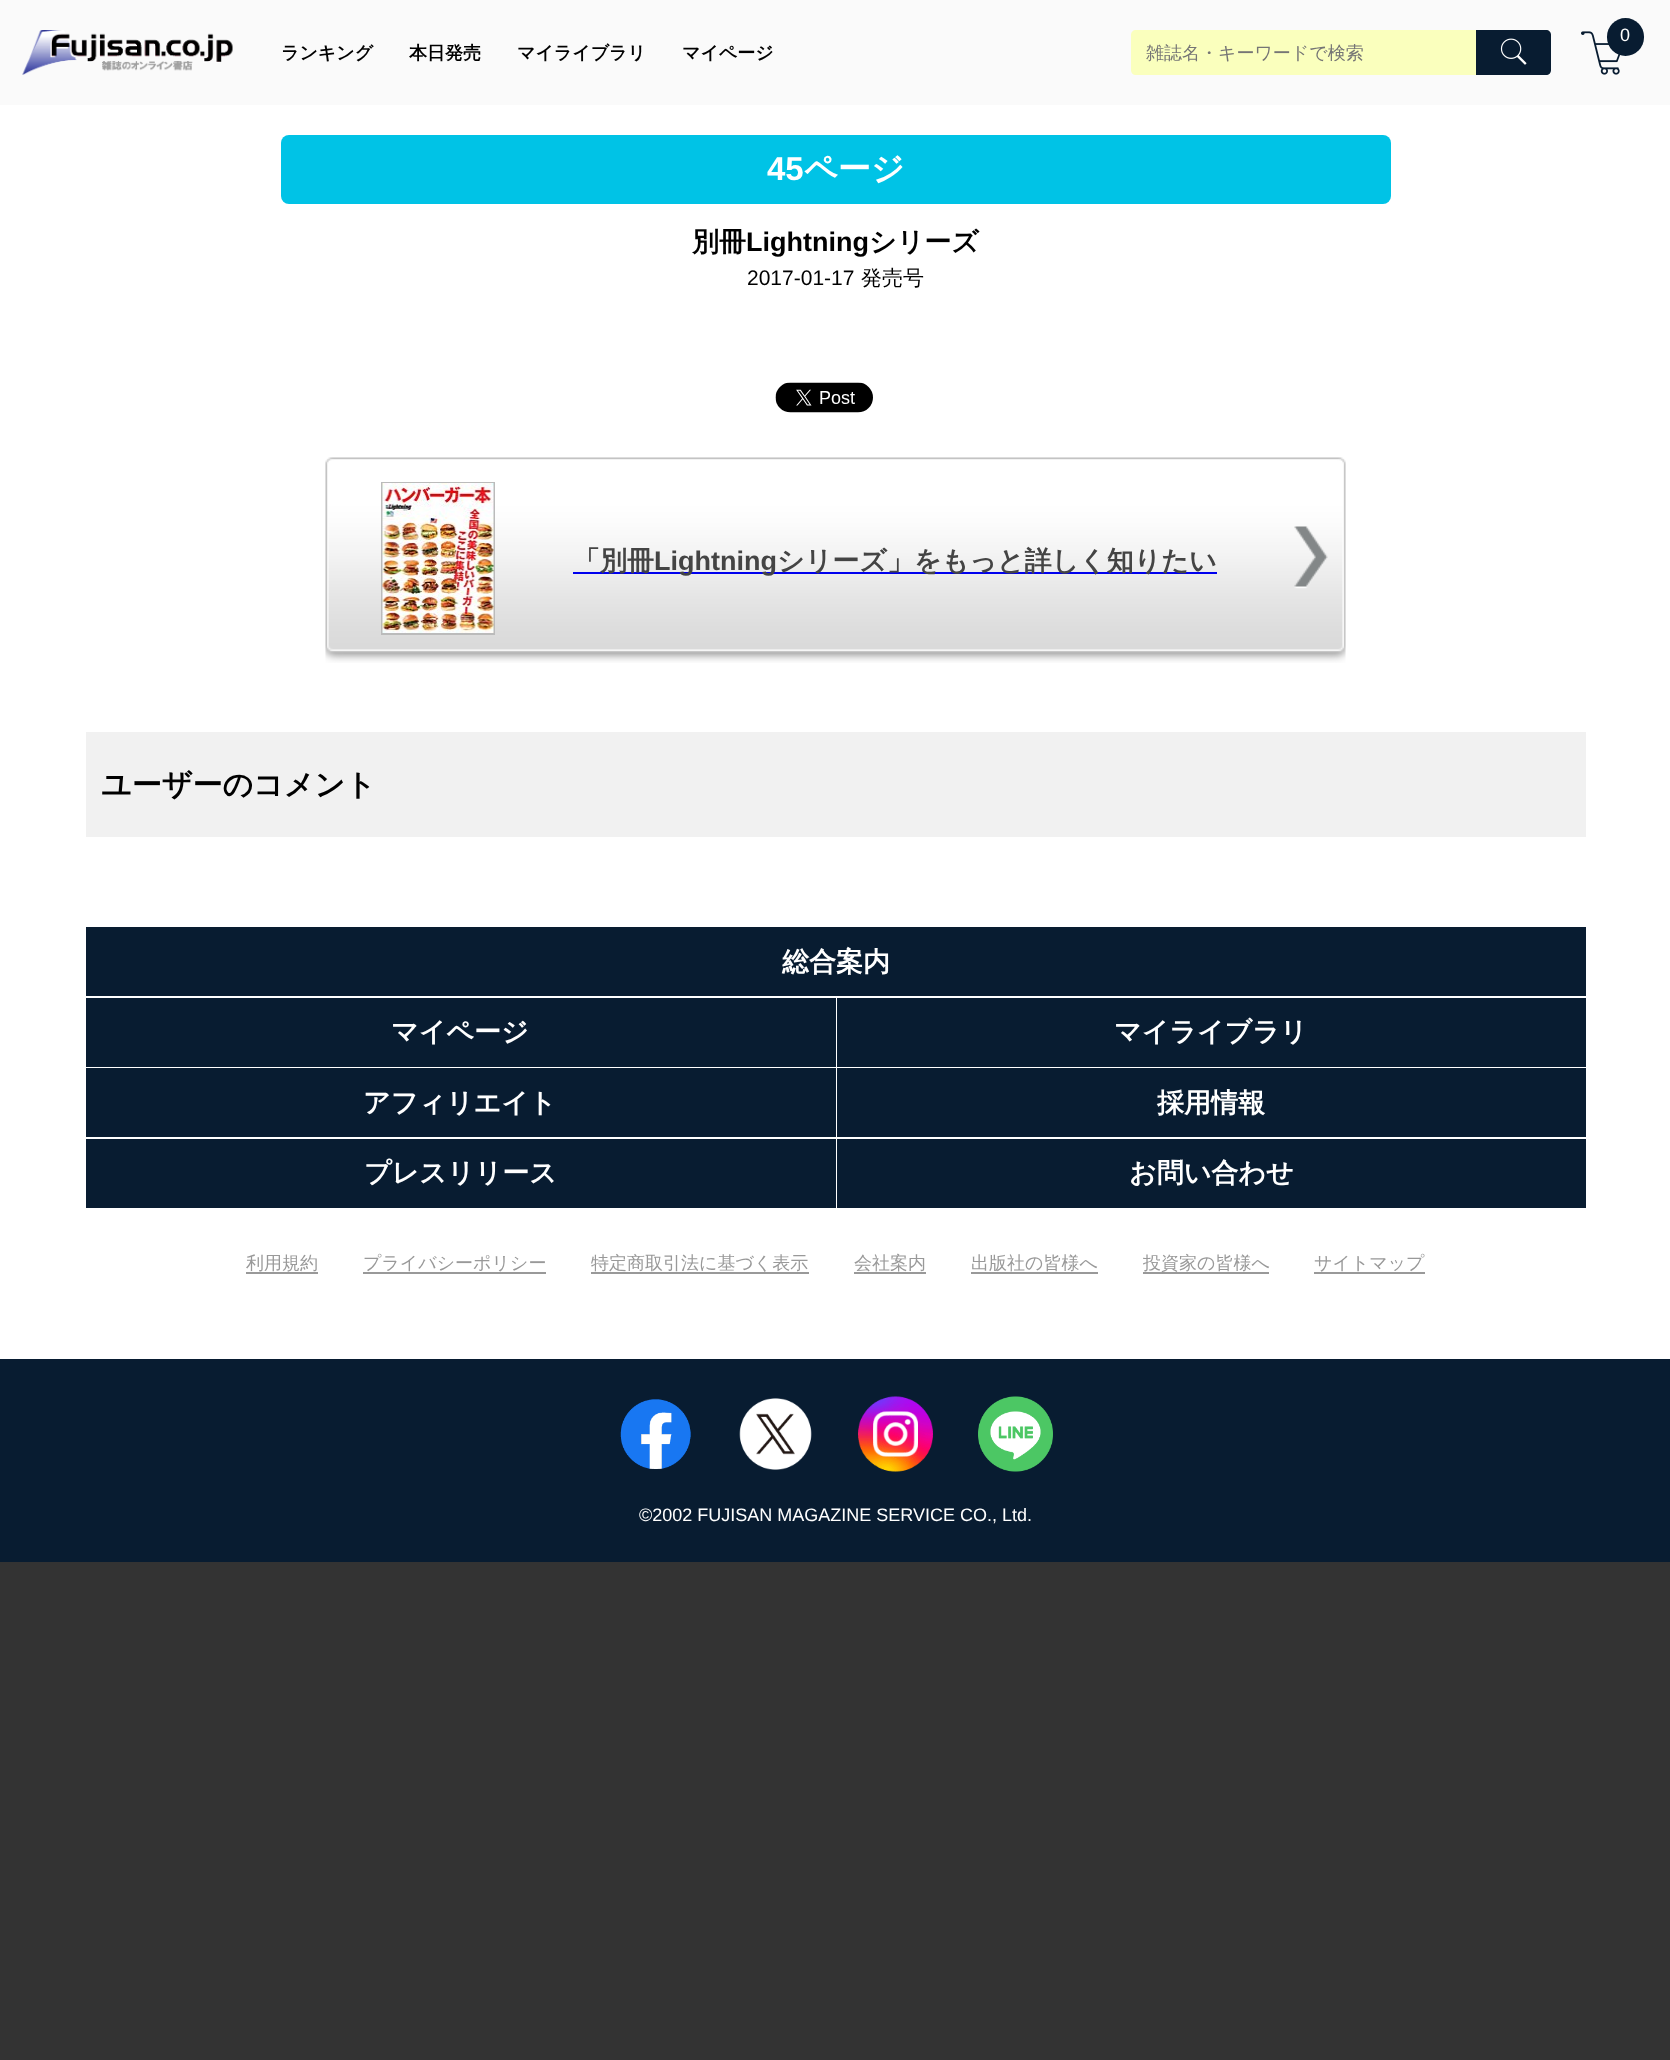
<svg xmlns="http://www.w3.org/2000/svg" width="1670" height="2060">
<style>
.a{font:bold 18px WenQuanYi Zen Hei;fill:#000}
.b{font:18px Liberation Sans;fill:#fff}
.c{font:500 18px WenQuanYi Zen Hei;fill:#757575}
.d{font:bold 33px Liberation Sans;fill:#fff}
.e{font:bold 33px WenQuanYi Zen Hei;fill:#fff}
.f{font:bold 27px WenQuanYi Zen Hei;fill:#000}
.g{font:bold 27px Liberation Sans;fill:#000}
.h{font:21px Liberation Sans;fill:#000}
.i{font:500 21px WenQuanYi Zen Hei;fill:#000}
.j{font:bold 27px WenQuanYi Zen Hei;fill:#444}
.k{font:bold 27px Liberation Sans;fill:#444}
.l{font:bold 30px WenQuanYi Zen Hei;fill:#000}
.m{font:bold 27px WenQuanYi Zen Hei;fill:#fff}
.n{font:500 18px WenQuanYi Zen Hei;fill:#999}
</style>
<rect width="100%" height="100%" fill="#333"/>
<path fill="#fff" d="M0 105h1670v1254H0z"/>
<path fill="#fafafa" d="M0 0h1670v105H0z"/>
<image href="1.png" x="22" y="30" width="211" height="45"/>
<image href="2.png" x="1581" y="31" width="39" height="44"/>
<rect fill="#081c31" x="1607" y="18" width="37" height="38" rx="18.5"/>
<path fill="#faffbd" d="M1136 30h340v45h-340c-3 0-5-2-5-5v-35c0-3 2-5 5-5z"/>
<path fill="#081c31" d="M1476 30h70c3 0 5 2 5 5v35c0 3-2 5-5 5h-70z"/>
<image href="3.png" x="1500" y="38" width="27" height="27"/>
<rect fill="#00c3e6" x="281" y="135" width="1110" height="69" rx="8"/>
<image href="4.png" x="775" y="382" width="98" height="31"/>
<image href="5.png" x="325" y="457" width="1021" height="206"/>
<path fill="none" stroke="#bbb" stroke-width="2" d="M382 483h112v151H382z"/>
<image href="6.png" x="382" y="483" width="112" height="150"/>
<path fill="#00e" d="M573 572h644v2H573z"/>
<path fill="#f1f1f1" d="M86 732h1500v105H86z"/>
<path fill="#081c31" d="M86 927h1500v69H86z"/>
<path fill="#081c31" d="M86 998h750v69H86z"/>
<path fill="#081c31" d="M837 998h749v69H837z"/>
<path fill="#081c31" d="M86 1068h750v69H86z"/>
<path fill="#081c31" d="M837 1068h749v69H837z"/>
<path fill="#081c31" d="M86 1139h750v69H86z"/>
<path fill="#081c31" d="M837 1139h749v69H837z"/>
<path fill="#999" d="M246 1272h72v2H246z"/>
<path fill="#999" d="M363 1272h183v2H363z"/>
<path fill="#999" d="M591 1272h218v2H591z"/>
<path fill="#999" d="M854 1272h72v2H854z"/>
<path fill="#999" d="M971 1272h127v2H971z"/>
<path fill="#999" d="M1143 1272h126v2H1143z"/>
<path fill="#999" d="M1314 1272h111v2H1314z"/>
<path fill="#081c31" d="M0 1359h1670v203H0z"/>
<image href="7.png" x="620" y="1399" width="71" height="70"/>
<image href="8.png" x="739" y="1398" width="73" height="72"/>
<image href="9.png" x="858" y="1396" width="75" height="76"/>
<image href="10.png" x="978" y="1396" width="75" height="76"/>
<text class="a" x="281" y="59">ランキング</text>
<text class="a" x="409" y="59">本日発売</text>
<text class="a" x="517" y="59">マイライブラリ</text>
<text class="a" x="682" y="59">マイページ</text>
<text class="b" x="1620" y="41">0</text>
<text class="c" x="1146" y="59">雑誌名・キーワードで検索</text>
<text class="d" x="767" y="180">45</text>
<text class="e" x="804" y="180">ページ</text>
<text class="f" x="692" y="251">別冊</text>
<text class="g" x="746" y="251">Lightning</text>
<text class="f" x="869" y="251">シリーズ</text>
<text class="h" x="747" y="285">2017-01-17</text>
<text class="i" x="861" y="285">発売号</text>
<text class="j" x="573" y="570">「別冊</text>
<text class="k" x="654" y="570">Lightning</text>
<text class="j" x="777" y="570">シリーズ」をもっと詳しく知りたい</text>
<text class="l" x="101" y="795">ユーザーのコメント</text>
<text class="m" x="782" y="971">総合案内</text>
<text class="m" x="391" y="1041">マイページ</text>
<text class="m" x="1114" y="1041">マイライブラリ</text>
<text class="m" x="363" y="1112">アフィリエイト</text>
<text class="m" x="1157" y="1112">採用情報</text>
<text class="m" x="364" y="1182">プレスリリース</text>
<text class="m" x="1129" y="1182">お問い合わせ</text>
<text class="n" x="246" y="1269">利用規約</text>
<text class="n" x="363" y="1269">プライバシーポリシー</text>
<text class="n" x="591" y="1269">特定商取引法に基づく表示</text>
<text class="n" x="854" y="1269">会社案内</text>
<text class="n" x="971" y="1269">出版社の皆様へ</text>
<text class="n" x="1143" y="1269">投資家の皆様へ</text>
<text class="n" x="1314" y="1269">サイトマップ</text>
<text class="b" x="639" y="1521">©︎2002 FUJISAN MAGAZINE SERVICE CO., Ltd.</text>
</svg>
